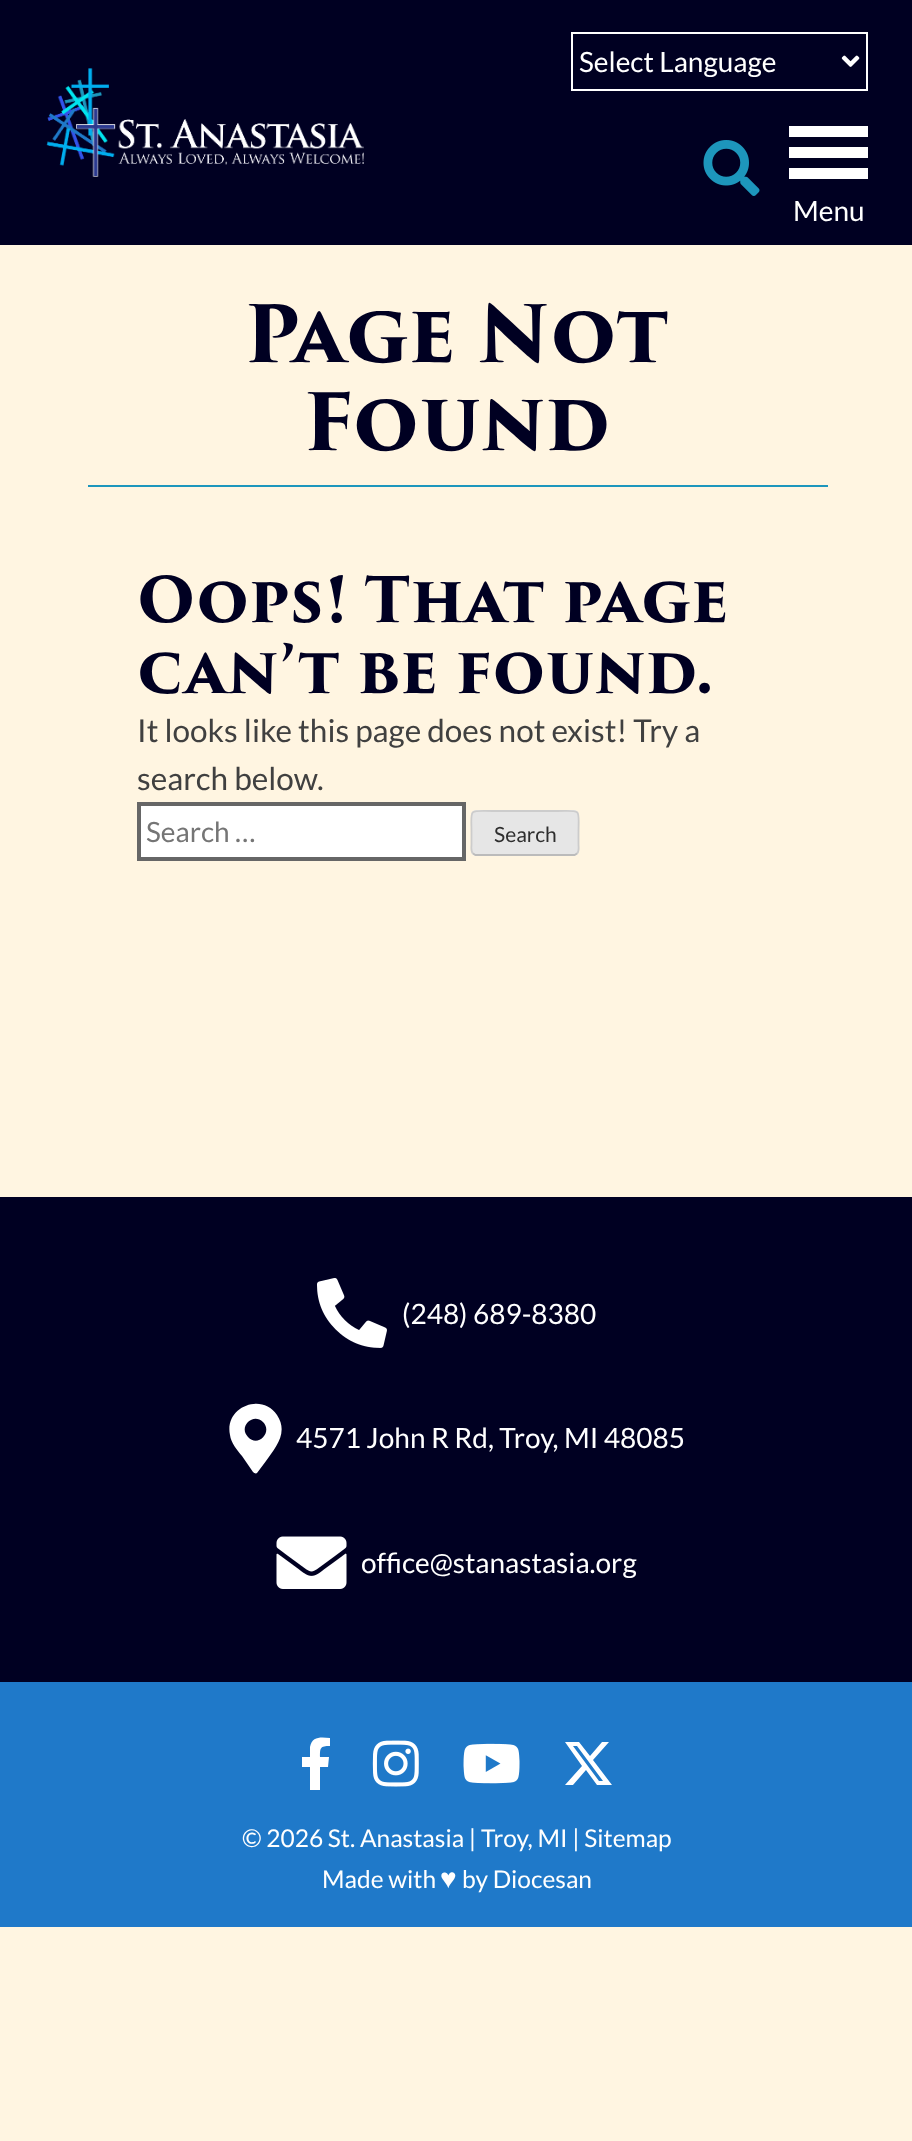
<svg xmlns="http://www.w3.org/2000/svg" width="912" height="2141">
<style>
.a{font:28px Lato;fill:#fff}
.b{font:bold 77px 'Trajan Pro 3';fill:#002}
.c{font:bold 61.25px 'Trajan Pro 3';fill:#002}
.d{font:31.5px Lato;fill:#404040}
.e{font:28px Lato;fill:#757575}
.f{font:21px Lato;fill:#2e2e2e}
.g{font:24.5px Lato;fill:#fff}
.h{font:28px Liberation Sans;fill:#fff}
</style>
<rect width="100%" height="100%" fill="#fff5e1"/>
<path fill="#002" d="M0 0h912v245H0z"/>
<image href="1.png" x="46" y="68" width="318" height="109"/>
<path fill="none" stroke="#fff" stroke-width="2" d="M572 33h295v57H572z"/>
<image href="2.png" x="841" y="55" width="19" height="12"/>
<image href="3.png" x="703" y="140" width="57" height="56"/>
<path fill="#fff" d="M789 126h79v11H789z"/>
<path fill="#fff" d="M789 147h79v11H789z"/>
<path fill="#fff" d="M789 168h79v11H789z"/>
<path fill="#1d96bc" d="M88 485h740v2H88z"/>
<path fill="#fff" stroke="#666" stroke-width="4" d="M139 804h325v55H139z"/>
<rect fill="#e6e6e6" x="471" y="810" width="108" height="46" rx="5"/>
<path fill="none" stroke="#bbb" stroke-width="1.8" d="M577 853.5l-2.5 1.5h-99l-2.5-1.5"/>
<path fill="none" stroke="#ccc" stroke-width="1.8" d="M473 853.5c-2.5-2-1.5-6.5-1.5-9v-11.5c0-25-4-22 21-22h65c25 0 21-3 21 22v11.5c0 2.5 1 7-1.5 9"/>
<path fill="#002" d="M0 1197h912v485H0z"/>
<image href="4.png" x="317" y="1278" width="70" height="70"/>
<path fill="#fff" d="M253 1472l-11-16c-5-6-11-13-12-21c-6-28 32-43 47-20c12 18-2 33-11 46l-9 12c-1 1-3 0-4-1zm-5-35c10 11 25-5 15-15c-10-10-25 5-15 15z"/>
<image href="5.png" x="276" y="1536" width="71" height="53"/>
<path fill="#1f79c9" d="M0 1682h912v245H0z"/>
<path fill="#fff" d="M328 1767h-8v23h-10v-23h-8v-10h8v-10c2-11 11-10 20-9v8c-10 0-10 2-10 11h9z"/>
<image href="6.png" x="372" y="1740" width="47" height="47"/>
<image href="7.png" x="463" y="1743" width="57" height="41"/>
<path fill="#fff" d="M602 1742h7l-16 18l19 25h-15l-11-15l-13 15h-8l17-19l-17-24h14l11 14zm-3 39h4l-26-35h-4z"/>
<text class="a" x="579" y="72">Select Language</text>
<text class="a" x="793" y="221">Menu</text>
<text class="b" x="244" y="362">Page Not</text>
<text class="b" x="303" y="450">Found</text>
<text class="c" x="137" y="622">Oops! That page</text>
<text class="c" x="137" y="693">can’t be found.</text>
<text class="d" x="137" y="742">It looks like this page does not exist! Try a</text>
<text class="d" x="137" y="790">search below.</text>
<text class="e" x="146" y="842">Search …</text>
<text class="f" x="494" y="842">Search</text>
<text class="a" x="402" y="1324">(248) 689-8380</text>
<text class="a" x="296" y="1448">4571 John R Rd, Troy, MI 48085</text>
<text class="a" x="361" y="1573">office@stanastasia.org</text>
<text class="g" x="242" y="1847">© 2026 St. Anastasia | Troy, MI | Sitemap</text>
<text class="g" x="322" y="1888">Made with</text>
<text class="h" x="440" y="1888">♥</text>
<text class="g" x="462" y="1888">by Diocesan</text>
</svg>
